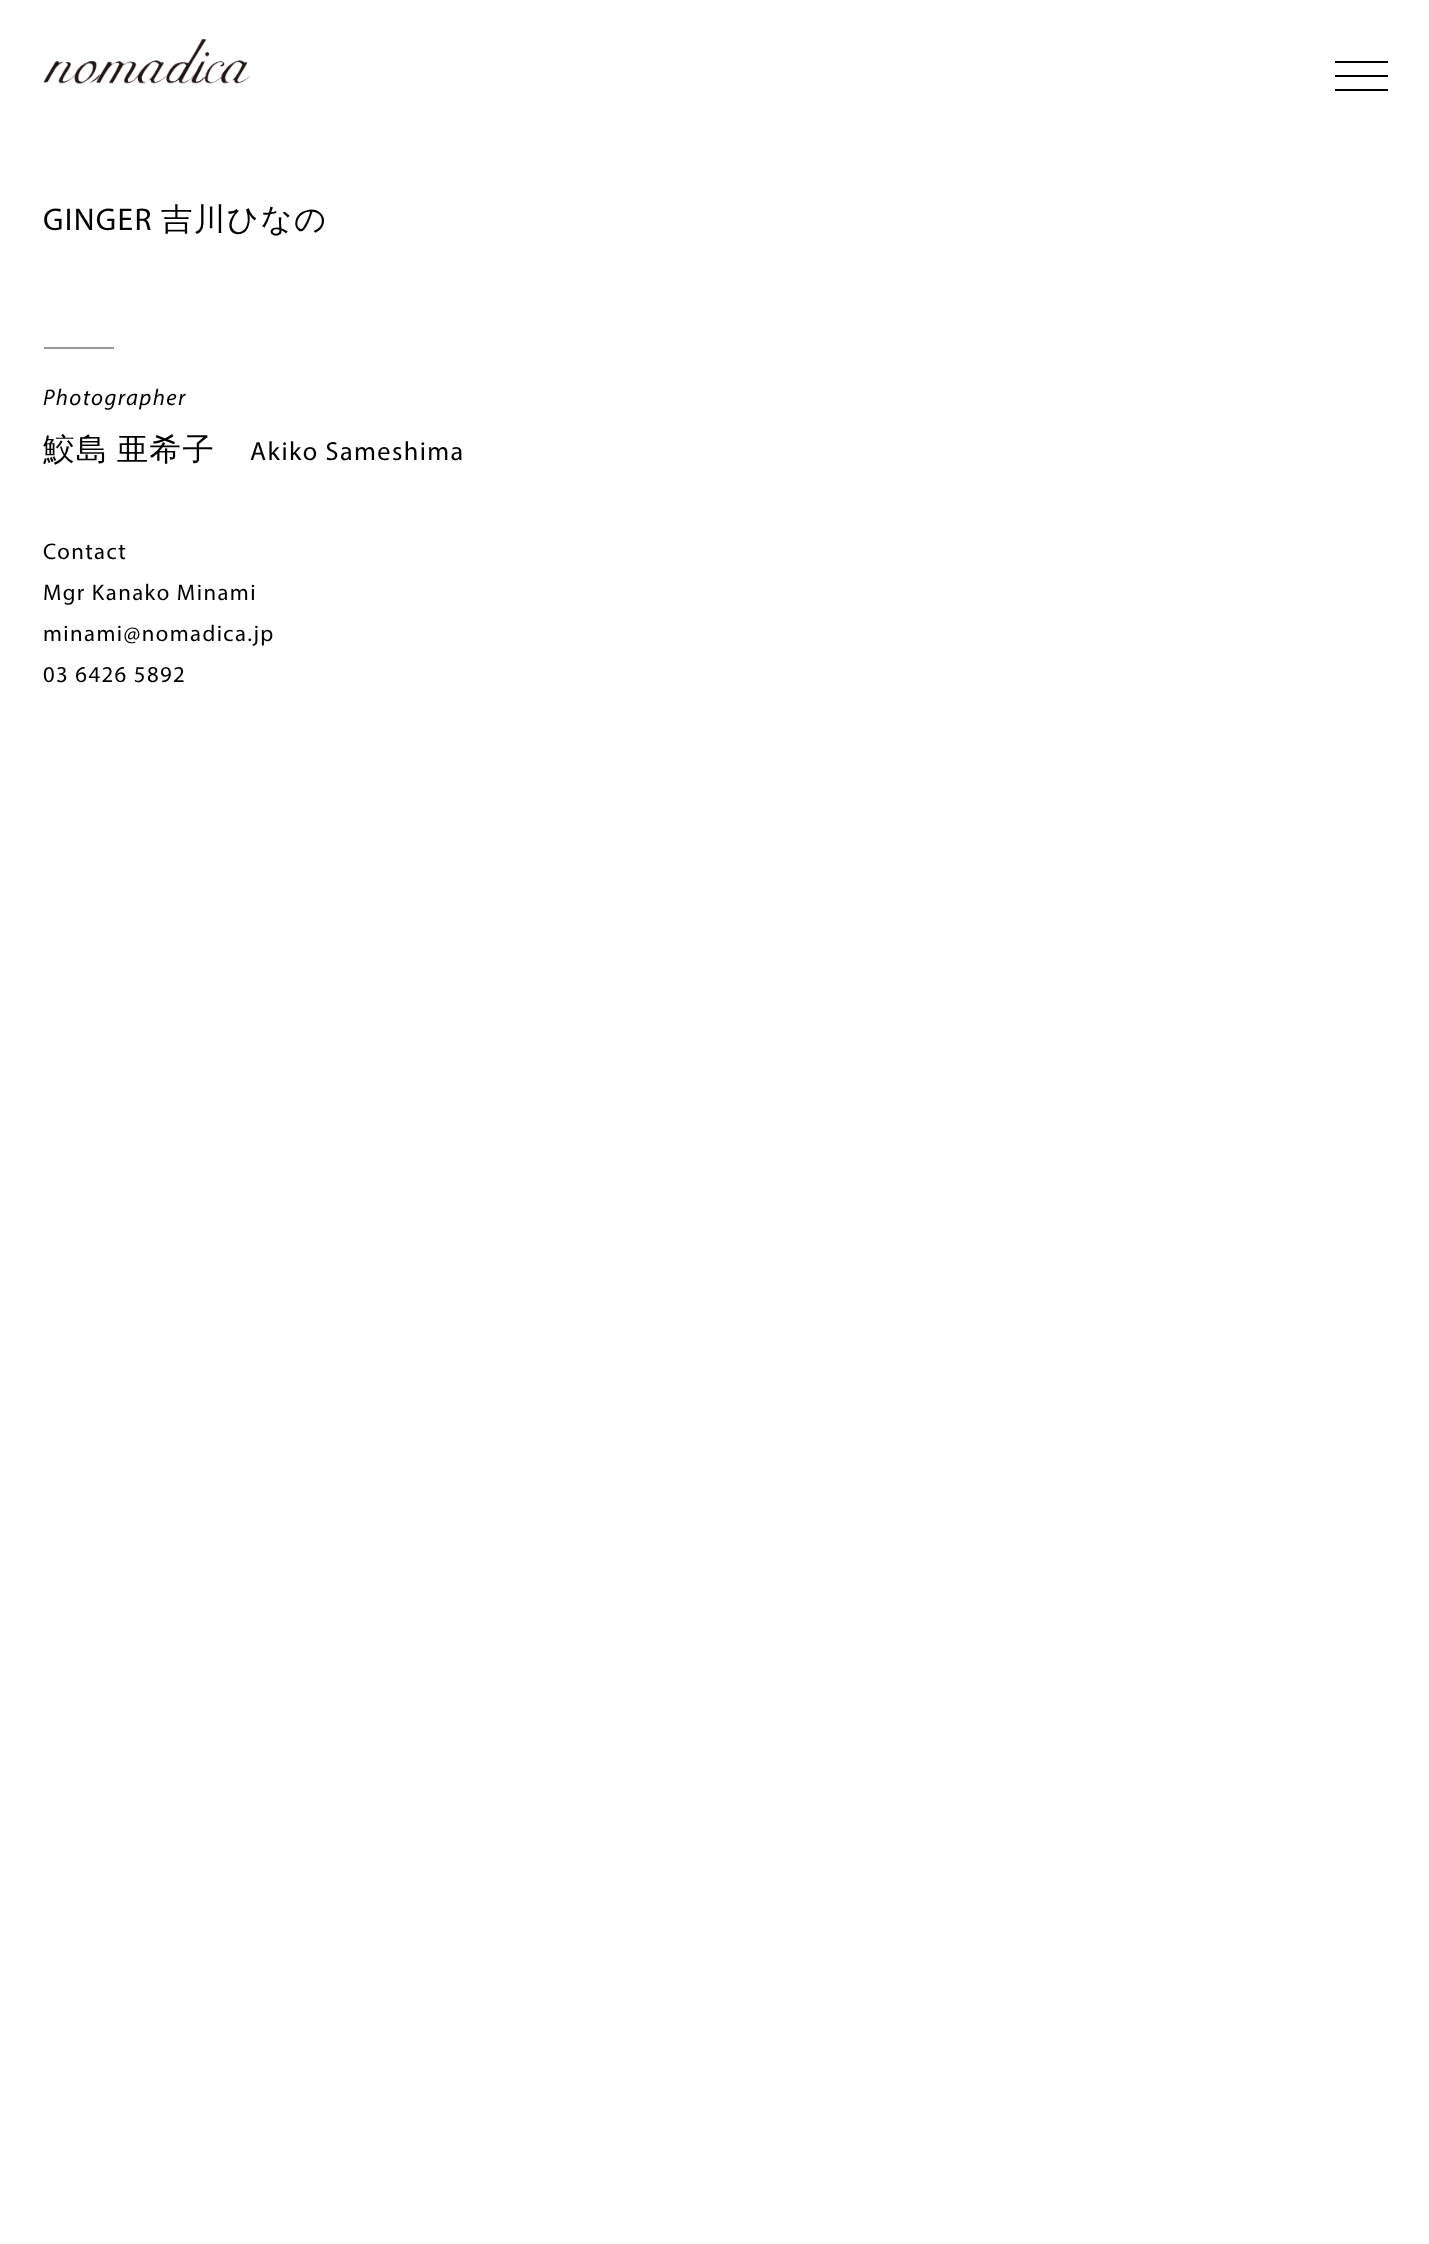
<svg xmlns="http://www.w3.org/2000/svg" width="1429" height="2244">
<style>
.a{font:31.5px Myriad;letter-spacing:1.4px;fill:#000}
.b{font:500 31.5px WenQuanYi Zen Hei;letter-spacing:1.4px;fill:#000}
.c{font:italic 22.75px Myriad;letter-spacing:1.4px;fill:#000}
.d{font:26.25px Myriad;letter-spacing:1.4px;fill:#000}
.e{font:22.75px Myriad;letter-spacing:1.4px;fill:#000}
</style>
<rect width="100%" height="100%" fill="#fff"/>
<image href="1.png" x="43" y="38" width="207" height="46"/>
<path fill="#000" d="M1335 61h53v2H1335z"/>
<path fill="#000" d="M1335 75h53v2H1335z"/>
<path fill="#000" d="M1335 89h53v2H1335z"/>
<path fill="#999" d="M44 347h70v2H44z"/>
<text class="a" x="43" y="230">GINGER</text>
<text class="b" x="161" y="230">吉川ひなの</text>
<text class="c" x="43" y="405">Photographer</text>
<text class="b" x="43" y="460" word-spacing="-3">鮫島 亜希子</text>
<text class="d" x="250" y="460">Akiko Sameshima</text>
<text class="e" x="43" y="559">Contact</text>
<text class="e" x="43" y="600">Mgr Kanako Minami</text>
<text class="e" x="43" y="641">minami@nomadica.jp</text>
<text class="e" x="43" y="682">03 6426 5892</text>
</svg>
